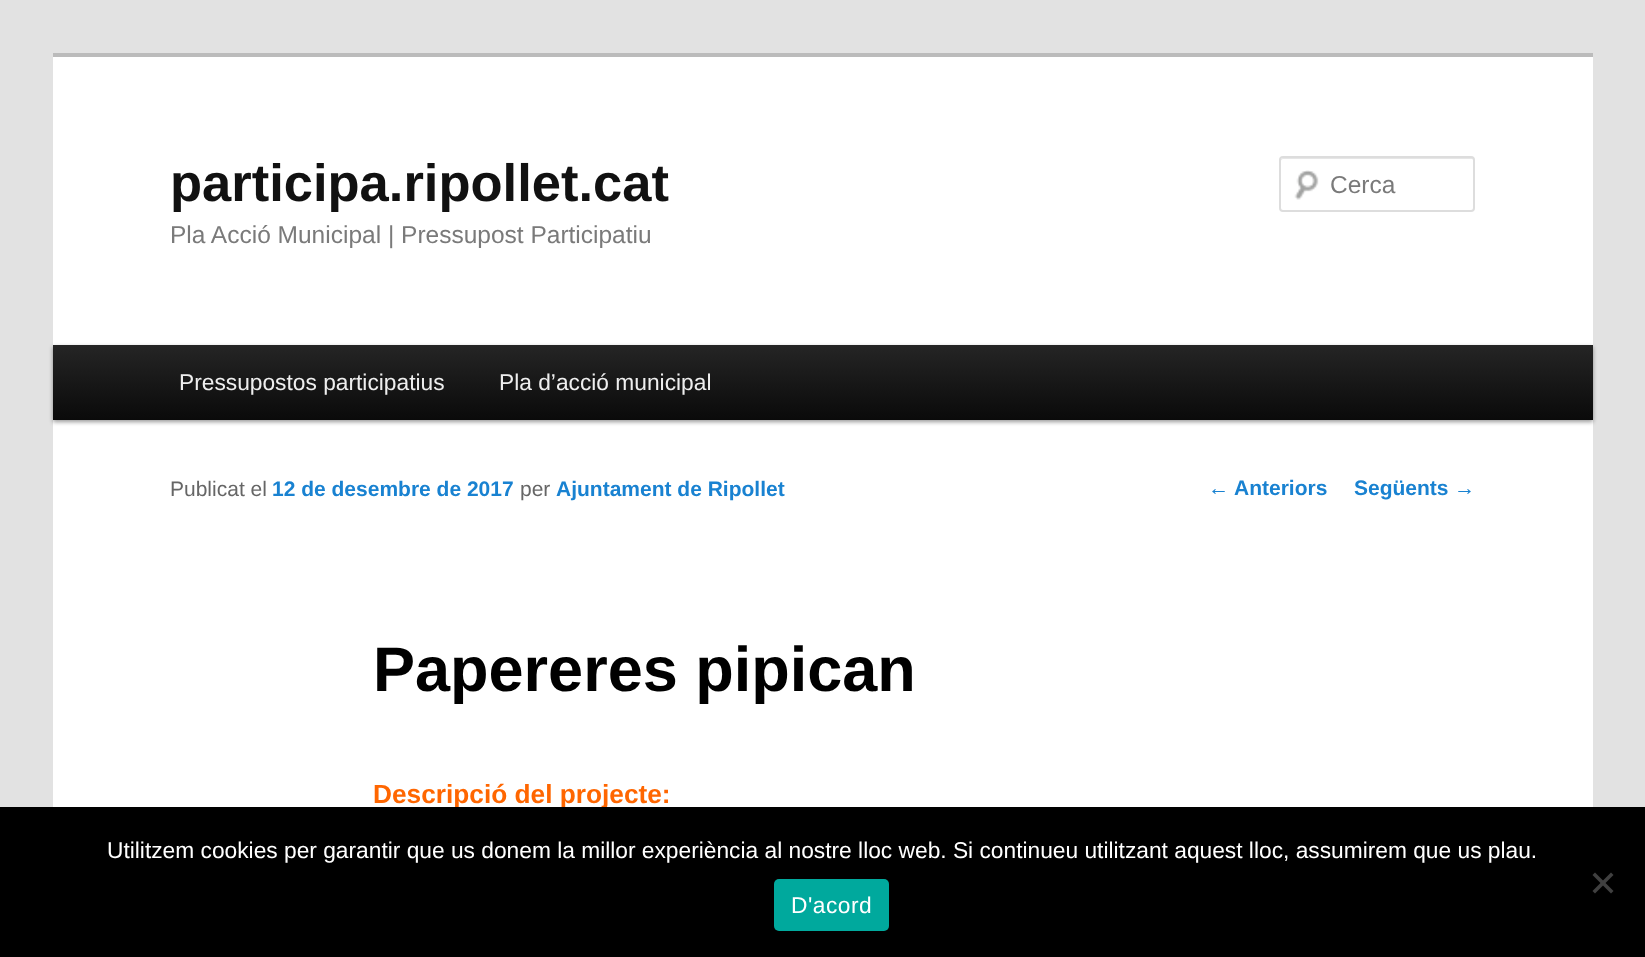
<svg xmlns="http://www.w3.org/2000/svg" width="1645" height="957">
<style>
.a{font:bold 52.5px Liberation Sans;fill:#111}
.b{font:24.5px Liberation Sans;fill:#7a7a7a}
.c{font:22.75px Liberation Sans;fill:#eee}
.d{font:21px Liberation Sans;fill:#666}
.e{font:bold 21px Liberation Sans;fill:#1982d1}
.f{font:bold 63px Liberation Sans;fill:#000}
.g{font:bold 26.25px Liberation Sans;fill:#f60}
.h{font:21px Liberation Sans;fill:#1982d1}
.i{font:22.75px Liberation Sans;fill:#fff}
.j{font:22.75px Liberation Sans;letter-spacing:0.5px;fill:#fff}
</style>
<defs>
<linearGradient id="g1" gradientUnits="userSpaceOnUse" x1="823" y1="345" x2="823" y2="420"><stop offset="0" stop-color="#252525"/><stop offset="1" stop-color="#0a0a0a"/></linearGradient>
</defs>
<rect width="100%" height="100%" fill="#e2e2e2"/>
<path fill="#fff" d="M53 57h1540v750H53z"/>
<path fill="#bbb" d="M53 53h1540v4H53z"/>
<image href="1.png" x="1294" y="170" width="25" height="30"/>
<path fill="#e6e6e6" d="M1283 159h189l2 1v1v-1c0-1-1-2-2-2h-189c-1 0-2 1-2 2v1c0-1 1-2 2-2z"/>
<rect fill="none" stroke="#ddd" stroke-width="2" x="1280" y="157" width="194" height="54" rx="3"/>
<path fill="#00000066" filter="blur(2px)" d="M53 347h1540v75H53z"/>
<path fill="url(#g1)" d="M53 345h1540v75H53z"/>
<text class="a" x="170" y="201">participa.ripollet.cat</text>
<text class="b" x="170" y="243">Pla Acció Municipal | Pressupost Participatiu</text>
<text class="b" x="1330" y="193">Cerca</text>
<text class="c" x="179" y="390">Pressupostos participatius</text>
<text class="c" x="499" y="390">Pla d’acció municipal</text>
<text class="d" x="170" y="496">Publicat el</text>
<text class="e" x="272" y="496">12 de desembre de 2017</text>
<text class="d" x="520" y="496">per</text>
<text class="e" x="556" y="496">Ajuntament de Ripollet</text>
<text class="f" x="373" y="691">Papereres pipican</text>
<text class="g" x="373" y="803">Descripció del projecte:</text>
<text class="h" x="1208" y="495">←</text>
<text class="e" x="1234" y="495">Anteriors</text>
<text class="e" x="1354" y="495">Següents</text>
<text class="h" x="1454" y="495">→</text>
<path fill="#000" d="M0 807h1645v150H0z"/>
<text class="i" x="107" y="858">Utilitzem cookies per garantir que us donem la millor experiència al nostre lloc web. Si continueu utilitzant aquest lloc, assumirem que us plau.</text>
<path fill="#404040" d="M1611 872.5l2.5 2.5l-18.5 18.5l-2.5-2.5z"/>
<path fill="#404040" d="M1592.5 875l2.5-2.5l18.5 18.5l-2.5 2.5z"/>
<rect fill="#00a99d" x="774" y="879" width="115" height="52" rx="5"/>
<text class="j" x="791" y="913">D'acord</text>
</svg>
